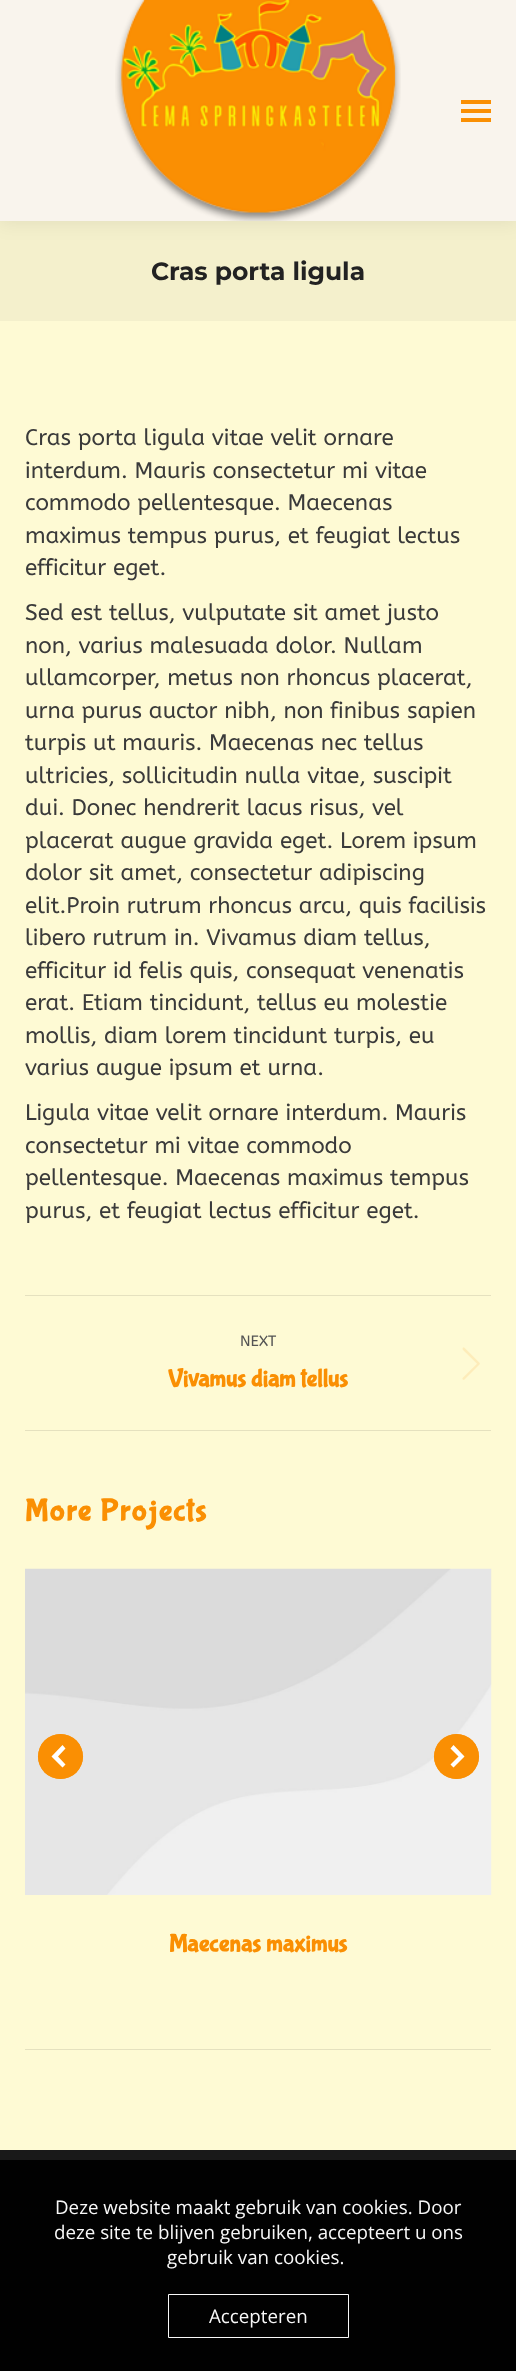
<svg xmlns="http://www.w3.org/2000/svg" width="516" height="2371">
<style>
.a{font:bold 25px Montserrat;fill:#222}
.b{font:22.5px ABeeZee;fill:#3a3a3a}
.c{font:15px ABeeZee;fill:#545454}
.d{font:bold 25px Bubblegum Sans;fill:#fa8f03}
.e{font:bold 31.25px Bubblegum Sans;letter-spacing:1.5px;fill:#fa8f03}
.f{font:18.75px Open Sans;fill:#f8f8f8}
</style>
<rect width="100%" height="100%" fill="#fefad4"/>
<path fill="#f4f0cc" d="M0 221h516v100H0z"/>
<path fill="#00000012" filter="blur(9.5px)" d="M-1 -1h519v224H-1z"/>
<path fill="#f9f4ed" d="M0 0h516v221H0z"/>
<image href="1.png" x="115" y="0" width="286" height="221"/>
<path fill="#fa8f03" d="M461 100h30v4H461z"/>
<path fill="#fa8f03" d="M461 109h30v4H461z"/>
<path fill="#fa8f03" d="M461 118h30v4H461z"/>
<path fill="#e5e1bf" d="M25 1295h466v1H25z"/>
<path fill="#e5e1bf" d="M25 1430h466v1H25z"/>
<image href="2.png" x="462" y="1347" width="18" height="33"/>
<path fill="#e5e1bf" d="M25 2049h466v1H25z"/>
<image href="3.png" x="25" y="1568" width="467" height="327"/>
<circle fill="#fa8f03" cx="60.5" cy="1756.5" r="22.5"/>
<circle fill="#fa8f03e6" cx="60.5" cy="1756.5" r="22.5"/>
<path fill="#fff" d="M65.5 1764.5l-7.5-8l7.5-8l-3-3.5l-11 11.5l11 11z"/>
<circle fill="#fa8f03" cx="456.5" cy="1756.5" r="22.5"/>
<circle fill="#fa8f03e6" cx="456.5" cy="1756.5" r="22.5"/>
<path fill="#fff" d="M453.5 1767.5l11-11l-11-11.5l-3 3.5l8 8l-8 8z"/>
<path fill="#191919" d="M0 2150h516v10H0z"/>
<path fill="#010101" d="M0 2160h516v211H0z"/>
<path fill="none" stroke="#f8f8f8" d="M168.5 2294.5h180v43H168.5z"/>
<text class="a" x="151" y="280">Cras porta ligula</text>
<text class="b" x="25" y="445">Cras porta ligula vitae velit ornare</text>
<text class="b" x="25" y="478">interdum. Mauris consectetur mi vitae</text>
<text class="b" x="25" y="510">commodo pellentesque. Maecenas</text>
<text class="b" x="25" y="543">maximus tempus purus, et feugiat lectus</text>
<text class="b" x="25" y="575">efficitur eget.</text>
<text class="b" x="25" y="620">Sed est tellus, vulputate sit amet justo</text>
<text class="b" x="25" y="653">non, varius malesuada dolor. Nullam</text>
<text class="b" x="25" y="685">ullamcorper, metus non rhoncus placerat,</text>
<text class="b" x="25" y="718">urna purus auctor nibh, non finibus sapien</text>
<text class="b" x="25" y="750">turpis ut mauris. Maecenas nec tellus</text>
<text class="b" x="25" y="783">ultricies, sollicitudin nulla vitae, suscipit</text>
<text class="b" x="25" y="815">dui. Donec hendrerit lacus risus, vel</text>
<text class="b" x="25" y="848">placerat augue gravida eget. Lorem ipsum</text>
<text class="b" x="25" y="880">dolor sit amet, consectetur adipiscing</text>
<text class="b" x="25" y="913">elit.Proin rutrum rhoncus arcu, quis facilisis</text>
<text class="b" x="25" y="945">libero rutrum in. Vivamus diam tellus,</text>
<text class="b" x="25" y="978">efficitur id felis quis, consequat venenatis</text>
<text class="b" x="25" y="1010">erat. Etiam tincidunt, tellus eu molestie</text>
<text class="b" x="25" y="1043">mollis, diam lorem tincidunt turpis, eu</text>
<text class="b" x="25" y="1075">varius augue ipsum et urna.</text>
<text class="b" x="25" y="1120">Ligula vitae velit ornare interdum. Mauris</text>
<text class="b" x="25" y="1153">consectetur mi vitae commodo</text>
<text class="b" x="25" y="1185">pellentesque. Maecenas maximus tempus</text>
<text class="b" x="25" y="1218">purus, et feugiat lectus efficitur eget.</text>
<text class="c" x="240" y="1346">NEXT</text>
<text class="d" x="168" y="1386">Vivamus diam tellus</text>
<text class="e" x="25" y="1520">More Projects</text>
<text class="d" x="169" y="1951">Maecenas maximus</text>
<text class="f" x="55" y="2214">Deze website maakt gebruik van cookies. Door</text>
<text class="f" x="54" y="2239">deze site te blijven gebruiken, accepteert u ons</text>
<text class="f" x="167" y="2264">gebruik van cookies.</text>
<text class="f" x="209" y="2323">Accepteren</text>
</svg>
